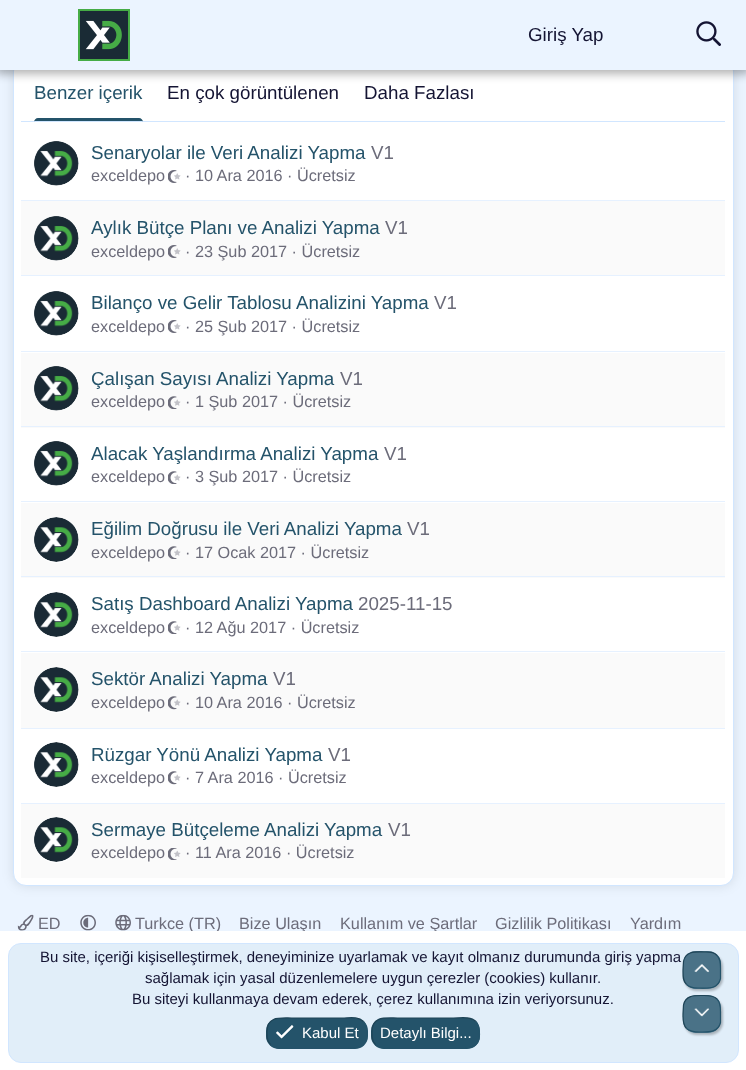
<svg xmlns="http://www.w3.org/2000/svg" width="746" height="1070">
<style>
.a{font:18.75px Liberation Sans;fill:#141433}
.b{font:18.75px Liberation Sans;fill:#24536a}
.c{font:18.75px Liberation Sans;fill:#6c6c7a}
.d{font:16.25px Liberation Sans;fill:#6c6c7a}
.e{font:15px Liberation Sans;fill:#141433}
.f{font:15px Liberation Sans;fill:#fff}
</style>
<defs>
<clipPath id="clip1"><path d="M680 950h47v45h-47zm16 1h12c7 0 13 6 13 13v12c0 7-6 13-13 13h-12c-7 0-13-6-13-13v-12c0-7 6-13 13-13z" clip-rule="evenodd"/></clipPath>
<clipPath id="clip2"><path d="M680 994h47v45h-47zm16 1h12c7 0 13 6 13 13v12c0 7-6 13-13 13h-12c-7 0-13-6-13-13v-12c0-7 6-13 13-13z" clip-rule="evenodd"/></clipPath>
</defs>
<rect width="100%" height="100%" fill="#ebf4ff"/>
<rect fill="#0000001a" filter="blur(6px)" x="13" y="58" width="721" height="828" rx="13"/>
<rect fill="#fff" stroke="#d1e6ff" x="13.5" y="58.5" width="720" height="827" rx="12.5"/>
<path fill="#0000004d" filter="blur(5px)" d="M-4 -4h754v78H-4z"/>
<path fill="#ebf4ff" d="M0 0h746v70H0z"/>
<image href="1.png" x="78" y="9" width="52" height="52"/>
<image href="2.png" x="696" y="21" width="25" height="25"/>
<path fill="#d1e6ff" d="M21 121h704v1H21z"/>
<path fill="#24536a" d="M38 118h101c2 0 4 2 4 4v-1h-109v1c0-2 2-4 4-4z"/>
<path fill="#e6f1ff" d="M21 200h704v1H21z"/>
<image href="3.png" x="34" y="141" width="45" height="45"/>
<image href="4.png" x="168" y="170" width="13" height="13"/>
<path fill="#fafafa" d="M21 201h704v74H21z"/>
<path fill="#e6f1ff" d="M21 275h704v1H21z"/>
<circle fill="#fff" cx="56.5" cy="238.5" r="22.5"/>
<image href="5.png" x="34" y="216" width="45" height="45"/>
<image href="6.png" x="168" y="245" width="13" height="13"/>
<path fill="#e6f1ff" d="M21 351h704v1H21z"/>
<image href="3.png" x="34" y="291" width="45" height="45"/>
<image href="4.png" x="168" y="320" width="13" height="13"/>
<path fill="#fafafa" d="M21 353h704v75H21z"/>
<path fill="#e6f1ff" d="M21 426h704v1H21z"/>
<circle fill="#fff" cx="56.5" cy="388.5" r="22.5"/>
<image href="7.png" x="34" y="366" width="45" height="45"/>
<image href="8.png" x="168" y="396" width="13" height="13"/>
<path fill="#e6f1ff" d="M21 501h704v1H21z"/>
<image href="3.png" x="34" y="441" width="45" height="45"/>
<image href="9.png" x="168" y="471" width="13" height="13"/>
<path fill="#fafafa" d="M21 503h704v75H21z"/>
<path fill="#e6f1ff" d="M21 576h704v1H21z"/>
<circle fill="#fff" cx="56.5" cy="540.5" r="22.5"/>
<image href="10.png" x="34" y="517" width="45" height="45"/>
<image href="8.png" x="168" y="546" width="13" height="13"/>
<path fill="#e6f1ff" d="M21 651h704v1H21z"/>
<image href="11.png" x="34" y="592" width="45" height="45"/>
<image href="9.png" x="168" y="621" width="13" height="13"/>
<path fill="#fafafa" d="M21 653h704v75H21z"/>
<path fill="#e6f1ff" d="M21 728h704v1H21z"/>
<circle fill="#fff" cx="56.5" cy="690.5" r="22.5"/>
<image href="12.png" x="34" y="667" width="45" height="45"/>
<image href="13.png" x="168" y="696" width="13" height="14"/>
<path fill="#e6f1ff" d="M21 803h704v1H21z"/>
<image href="14.png" x="34" y="742" width="45" height="45"/>
<image href="15.png" x="168" y="771" width="13" height="14"/>
<path fill="#fafafa" d="M21 804h704v74H21z"/>
<circle fill="#fff" cx="56.5" cy="840.5" r="22.5"/>
<image href="16.png" x="34" y="817" width="45" height="45"/>
<image href="17.png" x="168" y="848" width="13" height="12"/>
<image href="18.png" x="17" y="914" width="17" height="17"/>
<image href="19.png" x="80" y="914" width="16" height="17"/>
<image href="20.png" x="115" y="914" width="16" height="17"/>
<text class="a" x="528" y="41">Giriş Yap</text>
<text class="b" x="34" y="99">Benzer içerik</text>
<text class="a" x="167" y="99">En çok görüntülenen</text>
<text class="a" x="364" y="99">Daha Fazlası</text>
<text class="b" x="91" y="159">Senaryolar ile Veri Analizi Yapma</text>
<text class="c" x="371" y="159">V1</text>
<text class="d" x="91" y="181">exceldepo</text>
<text class="d" x="185" y="181">· 10 Ara 2016 · Ücretsiz</text>
<text class="b" x="91" y="234">Aylık Bütçe Planı ve Analizi Yapma</text>
<text class="c" x="385" y="234">V1</text>
<text class="d" x="91" y="257">exceldepo</text>
<text class="d" x="185" y="257">· 23 Şub 2017 · Ücretsiz</text>
<text class="b" x="91" y="309">Bilanço ve Gelir Tablosu Analizini Yapma</text>
<text class="c" x="434" y="309">V1</text>
<text class="d" x="91" y="332">exceldepo</text>
<text class="d" x="185" y="332">· 25 Şub 2017 · Ücretsiz</text>
<text class="b" x="91" y="385">Çalışan Sayısı Analizi Yapma</text>
<text class="c" x="340" y="385">V1</text>
<text class="d" x="91" y="407">exceldepo</text>
<text class="d" x="185" y="407">· 1 Şub 2017 · Ücretsiz</text>
<text class="b" x="91" y="460">Alacak Yaşlandırma Analizi Yapma</text>
<text class="c" x="384" y="460">V1</text>
<text class="d" x="91" y="482">exceldepo</text>
<text class="d" x="185" y="482">· 3 Şub 2017 · Ücretsiz</text>
<text class="b" x="91" y="535">Eğilim Doğrusu ile Veri Analizi Yapma</text>
<text class="c" x="407" y="535">V1</text>
<text class="d" x="91" y="558">exceldepo</text>
<text class="d" x="185" y="558">· 17 Ocak 2017 · Ücretsiz</text>
<text class="b" x="91" y="610">Satış Dashboard Analizi Yapma</text>
<text class="c" x="358" y="610">2025-11-15</text>
<text class="d" x="91" y="633">exceldepo</text>
<text class="d" x="185" y="633">· 12 Ağu 2017 · Ücretsiz</text>
<text class="b" x="91" y="685">Sektör Analizi Yapma</text>
<text class="c" x="273" y="685">V1</text>
<text class="d" x="91" y="708">exceldepo</text>
<text class="d" x="185" y="708">· 10 Ara 2016 · Ücretsiz</text>
<text class="b" x="91" y="761">Rüzgar Yönü Analizi Yapma</text>
<text class="c" x="328" y="761">V1</text>
<text class="d" x="91" y="783">exceldepo</text>
<text class="d" x="185" y="783">· 7 Ara 2016 · Ücretsiz</text>
<text class="b" x="91" y="836">Sermaye Bütçeleme Analizi Yapma</text>
<text class="c" x="388" y="836">V1</text>
<text class="d" x="91" y="858">exceldepo</text>
<text class="d" x="185" y="858">· 11 Ara 2016 · Ücretsiz</text>
<text class="d" x="38" y="929">ED</text>
<text class="d" x="135" y="929">Turkce (TR)</text>
<text class="d" x="239" y="929">Bize Ulaşın</text>
<text class="d" x="340" y="929">Kullanım ve Şartlar</text>
<text class="d" x="495" y="929">Gizlilik Politikası</text>
<text class="d" x="630" y="929">Yardım</text>
<path fill="#fff" d="M0 931h746v139H0z"/>
<rect fill="#e1eef9" stroke="#d1e6ff" x="8.5" y="943.5" width="730" height="119" rx="12.5"/>
<text class="e" x="40" y="962">Bu site, içeriği kişiselleştirmek, deneyiminize uyarlamak ve kayıt olmanız durumunda giriş yapma</text>
<text class="e" x="145" y="983">sağlamak için yasal düzenlemelere uygun çerezler (cookies) kullanır.</text>
<text class="e" x="132" y="1004">Bu siteyi kullanmaya devam ederek, çerez kullanımına izin veriyorsunuz.</text>
<rect fill="#24536a" x="266" y="1018" width="102" height="31" rx="13"/>
<path fill="none" stroke="#24536a" stroke-width="1.2" d="M363.5 1021.5c3.5 4 3.5 8.5 3.5 13c0 15.5-13 13.5-24.5 13.5h-51c-6.5 0-16 2-21-3.5"/>
<path fill="none" stroke="#1e4457" stroke-width="1.2" d="M270.5 1044.5c-4-3.5-3.5-8-3.5-13c0-15.5 13-13.5 24.5-13.5h51c6.5 0 15.5-2 21 3.5"/>
<image href="21.png" x="276" y="1025" width="18" height="14"/>
<text class="f" x="302" y="1038">Kabul Et</text>
<rect fill="#24536a" x="371" y="1018" width="109" height="31" rx="13"/>
<path fill="none" stroke="#24536a" stroke-width="1.2" d="M476 1021.5c3.5 4 3.5 8.5 3.5 13c0 16-14 13.5-26 13.5h-56c-6.5 0-16.5 2-22-3.5"/>
<path fill="none" stroke="#1e4457" stroke-width="1.2" d="M375.5 1044.5c-4-3.5-3.5-8-3.5-13c0-16 14-13.5 25.5-13.5h56c6.5 0 17-2 22.5 3.5"/>
<text class="f" x="380" y="1038">Detaylı Bilgi...</text>
<g clip-path="url(#clip1)">
<rect fill="#00000040" filter="blur(1px)" x="684" y="954" width="39" height="37" rx="13"/>
</g>
<rect fill="#24536acc" x="683" y="951" width="38" height="38" rx="13"/>
<path fill="none" stroke="#24536a" stroke-width="1.2" d="M717 955.5c4 4 3.5 9 3.5 14.5v8.5c-2.5 11-12.5 9.5-21 9.5c-4.5 0-9 .5-13-3.5"/>
<path fill="none" stroke="#1e4457" stroke-width="1.2" d="M686.5 984.5c-4-4-3.5-9-3.5-14.5l.5-8.5c2-11 12.5-9.5 20.5-9.5c5 0 9.5-.5 13 3.5"/>
<image href="22.png" x="694" y="964" width="16" height="9"/>
<g clip-path="url(#clip2)">
<rect fill="#00000040" filter="blur(1px)" x="684" y="998" width="39" height="37" rx="13"/>
</g>
<rect fill="#24536acc" x="683" y="995" width="38" height="38" rx="13"/>
<path fill="none" stroke="#24536a" stroke-width="1.2" d="M717 999c4 4 3.5 9.5 3.5 15v8.5c-2.5 10.5-12.5 9.5-21 9.5c-4.5 0-9 0-13-3.5"/>
<path fill="none" stroke="#1e4457" stroke-width="1.2" d="M686.5 1028.5c-4-4-3.5-9.5-3.5-14.5l.5-9c2-10.5 12.5-9.5 20.5-9.5c5 0 9.5 0 13 3.5"/>
<image href="23.png" x="694" y="1008" width="16" height="9"/>
</svg>
